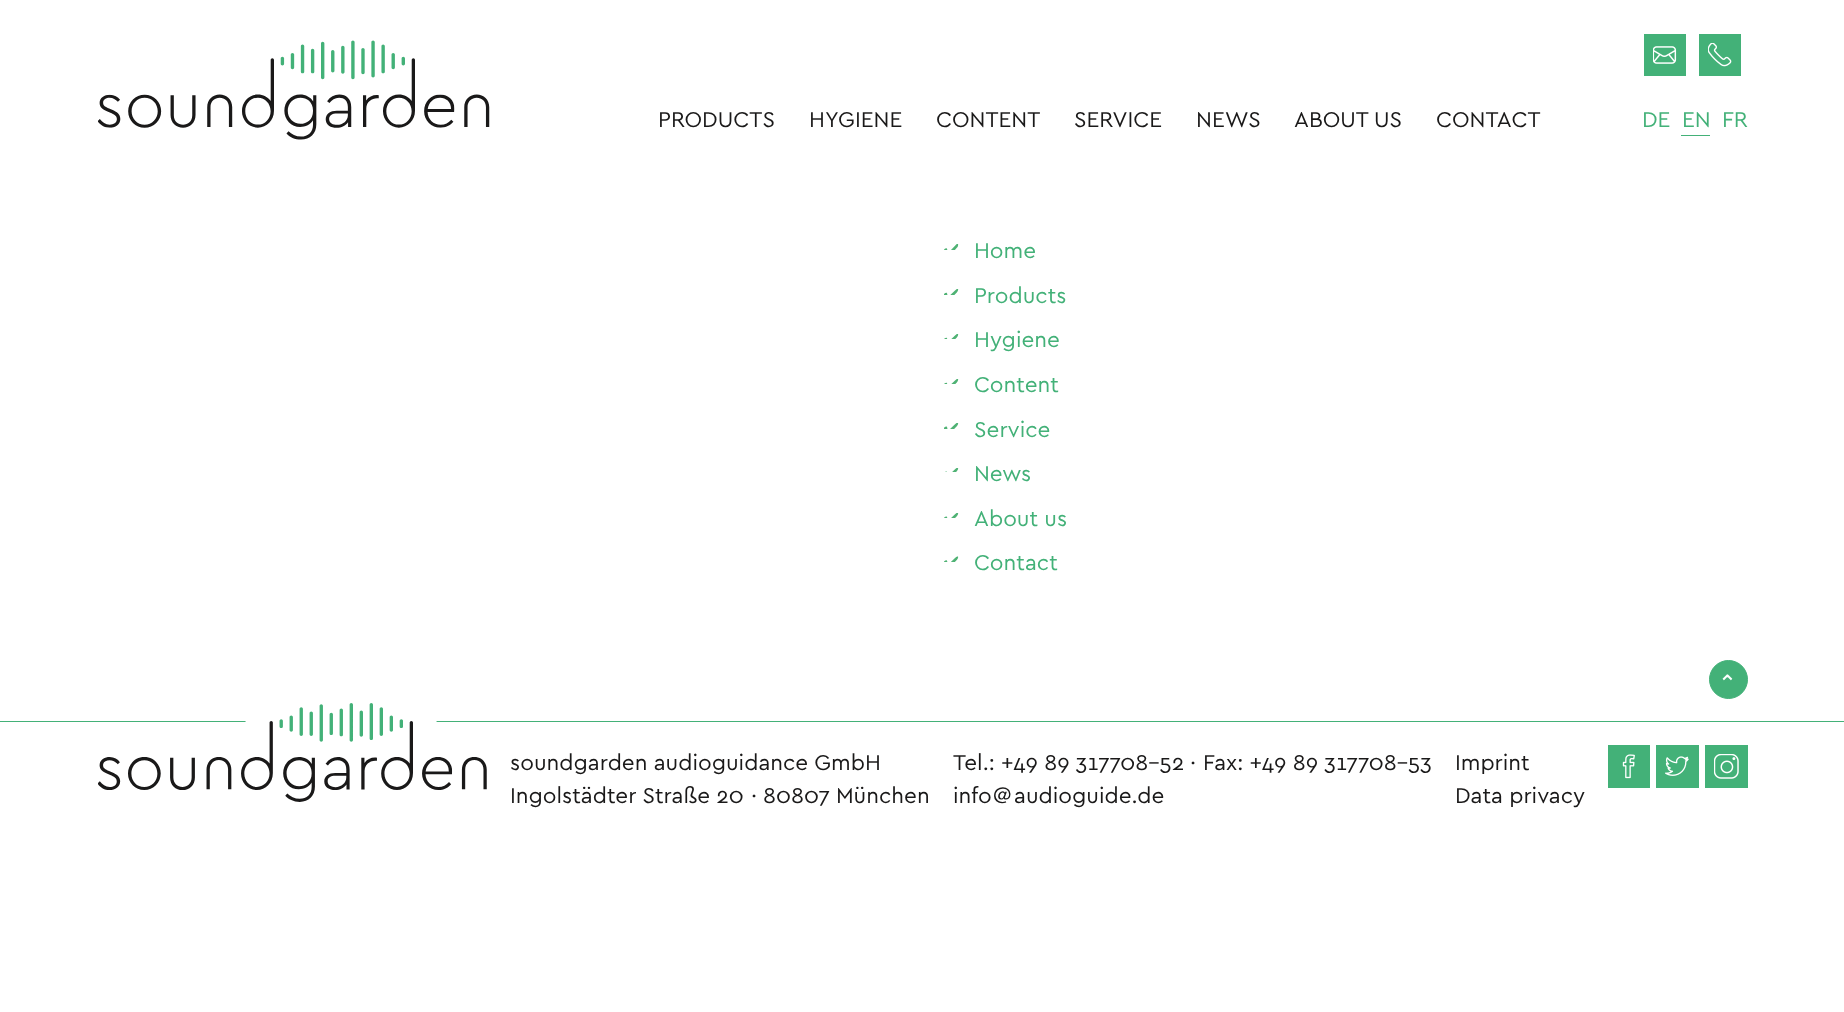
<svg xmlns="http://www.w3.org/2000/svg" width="1844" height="1012">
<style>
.a{font:22.5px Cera;fill:#1a1919}
.b{font:22.5px Cera;fill:#43b178}
.c{font:22.5px DejaVu Sans;fill:#fff}
.d{font:500 22.5px WenQuanYi Zen Hei;fill:#1a1919}
</style>
<rect width="100%" height="100%" fill="#fff"/>
<image href="1.png" x="98" y="40" width="392" height="100"/>
<path fill="#43b178" d="M1644 34h42v42H1644z"/>
<image href="2.png" x="1653" y="46" width="24" height="18"/>
<path fill="#43b178" d="M1699 34h42v42H1699z"/>
<image href="3.png" x="1708" y="43" width="24" height="24"/>
<path fill="#43b178" d="M1681 135h29v1H1681z"/>
<image href="4.png" x="944" y="244" width="15" height="6"/>
<image href="5.png" x="944" y="289" width="15" height="6"/>
<image href="6.png" x="944" y="334" width="15" height="5"/>
<image href="6.png" x="944" y="379" width="15" height="5"/>
<image href="7.png" x="944" y="423" width="15" height="6"/>
<image href="8.png" x="945" y="468" width="14" height="4"/>
<image href="9.png" x="944" y="513" width="15" height="5"/>
<image href="10.png" x="944" y="556" width="15" height="6"/>
<circle fill="#43b178" stroke="#43b178" cx="1728.5" cy="679.5" r="19"/>
<path fill="#43b178" d="M0 721h1844v1H0z"/>
<image href="11.png" x="98" y="703" width="389" height="99"/>
<path fill="#43b178" d="M1608 745h42v43H1608z"/>
<image href="12.png" x="1622" y="754" width="13" height="25"/>
<path fill="#43b178" d="M1656 745h43v43H1656z"/>
<image href="13.png" x="1665" y="756" width="24" height="20"/>
<path fill="#43b178" d="M1705 745h43v43H1705z"/>
<image href="14.png" x="1714" y="754" width="25" height="25"/>
<text class="a" x="658" y="127">PRODUCTS</text>
<text class="a" x="809" y="127">HYGIENE</text>
<text class="a" x="936" y="127">CONTENT</text>
<text class="a" x="1074" y="127">SERVICE</text>
<text class="a" x="1196" y="127">NEWS</text>
<text class="a" x="1294" y="127">ABOUT US</text>
<text class="a" x="1436" y="127">CONTACT</text>
<text class="b" x="1642" y="127">DE</text>
<text class="b" x="1682" y="127">EN</text>
<text class="b" x="1722" y="127">FR</text>
<text class="b" x="974" y="258">Home</text>
<text class="b" x="974" y="303">Products</text>
<text class="b" x="974" y="347">Hygiene</text>
<text class="b" x="974" y="392">Content</text>
<text class="b" x="974" y="437">Service</text>
<text class="b" x="974" y="481">News</text>
<text class="b" x="974" y="526">About us</text>
<text class="b" x="974" y="570">Contact</text>
<text class="c" x="1718" y="691">⌃</text>
<text class="a" x="510" y="770">soundgarden audioguidance GmbH</text>
<text class="a" x="510" y="803">Ingolstädter Straße 20</text>
<text class="a" x="751" y="803">·</text>
<text class="a" x="763" y="803">80807 München</text>
<text class="a" x="953" y="770">Tel.: +49 89 317708-52</text>
<text class="a" x="1190" y="770">·</text>
<text class="a" x="1203" y="770">Fax: +49 89 317708-53</text>
<text class="a" x="953" y="803">info</text>
<text class="d" x="991" y="803">＠</text>
<text class="a" x="1014" y="803">audioguide.de</text>
<text class="a" x="1455" y="770">Imprint</text>
<text class="a" x="1455" y="803">Data privacy</text>
</svg>
